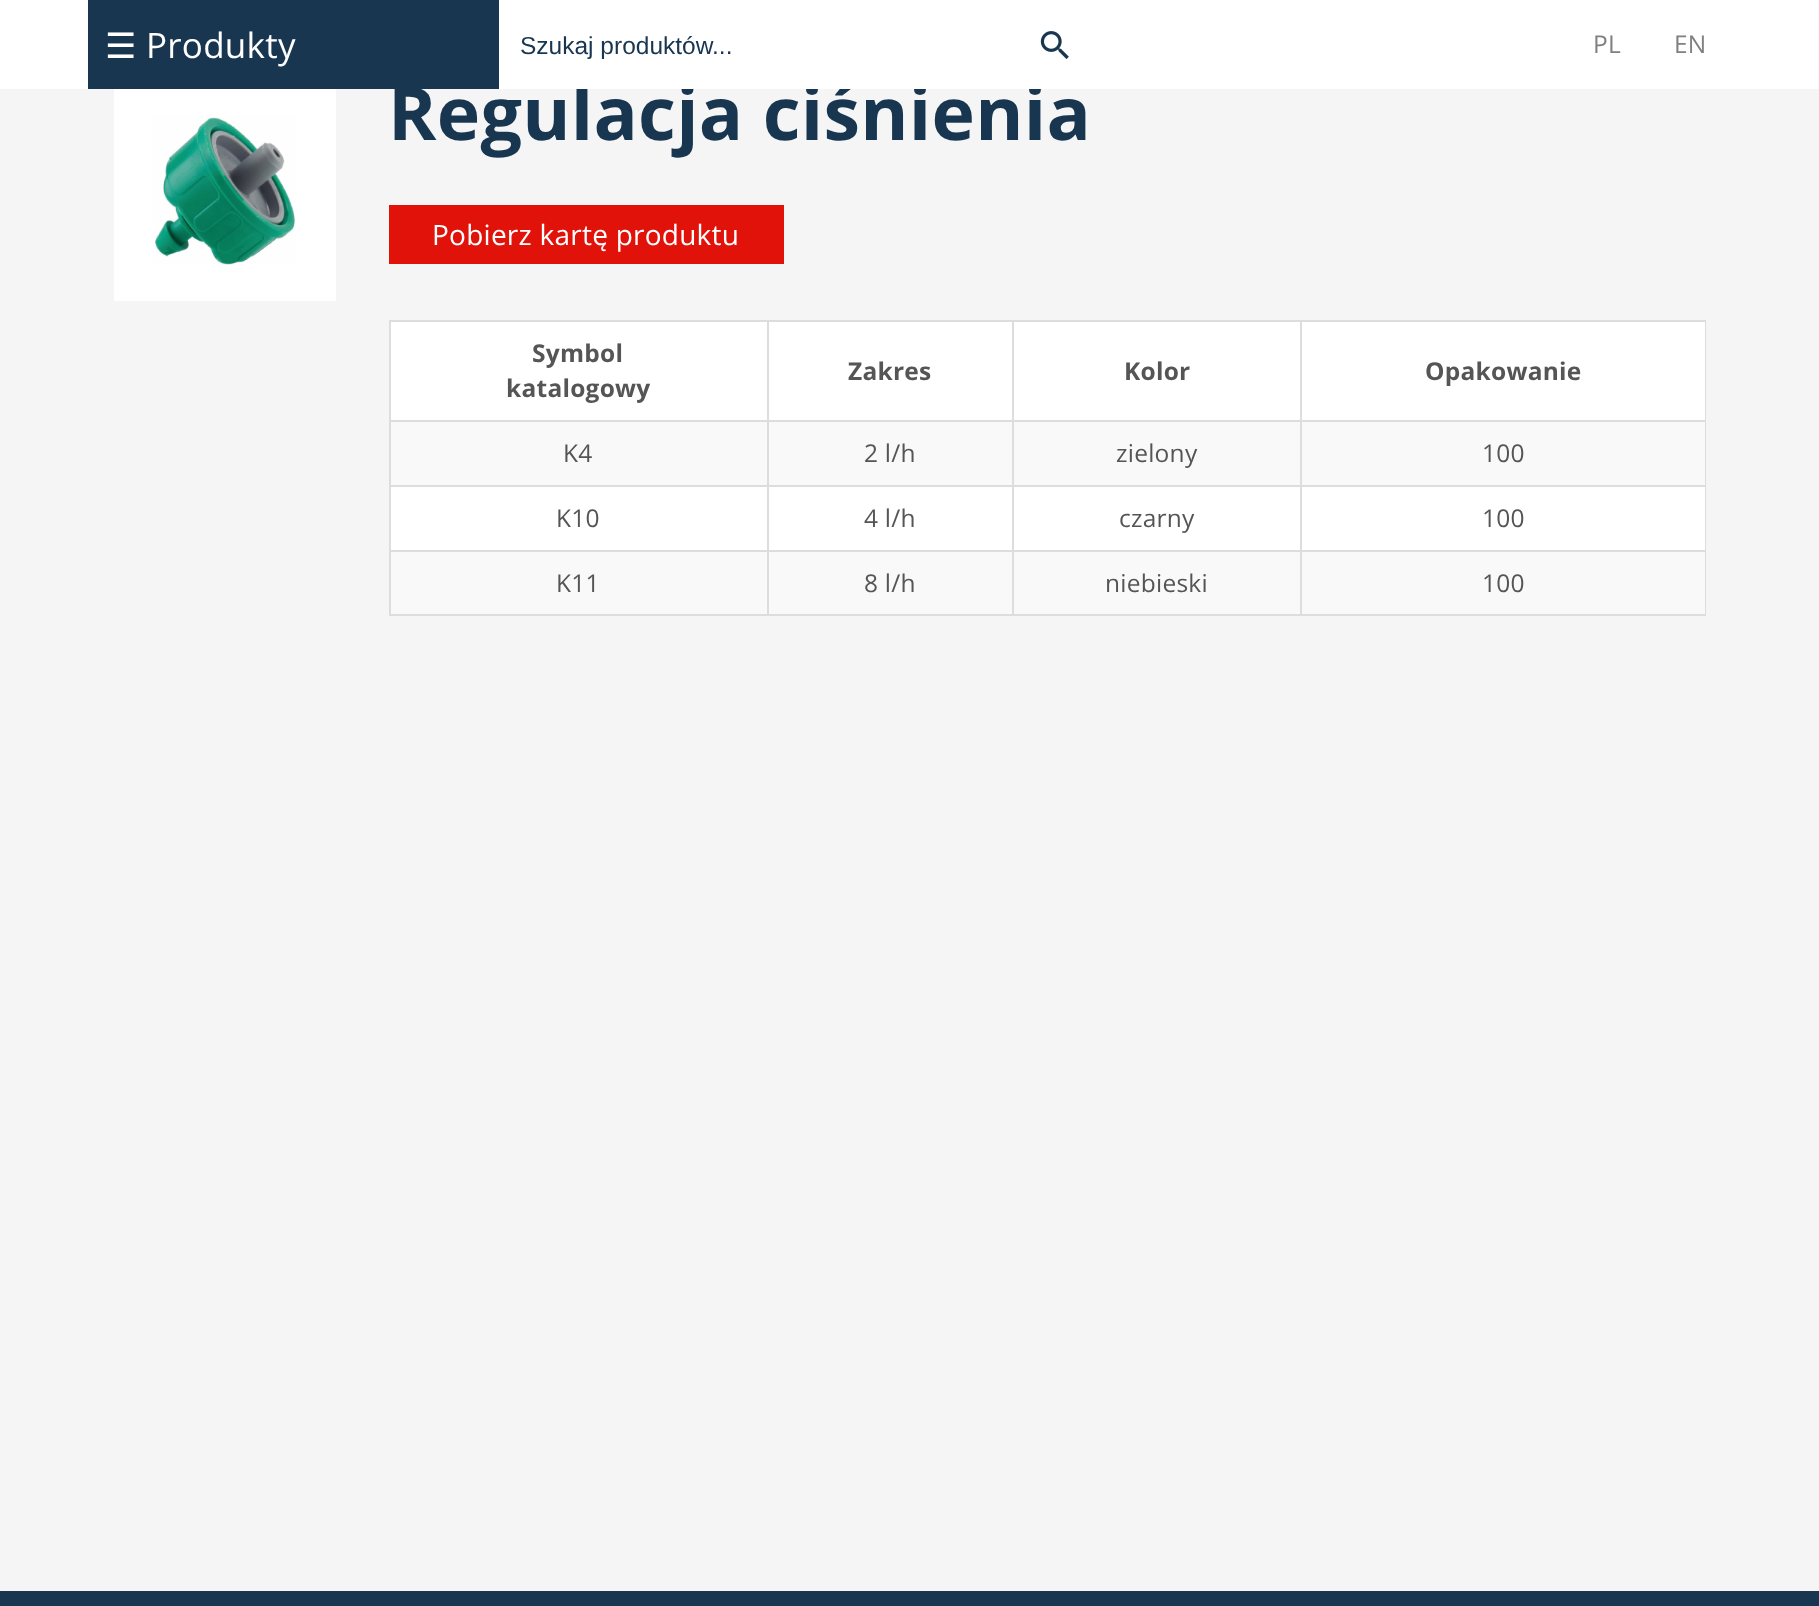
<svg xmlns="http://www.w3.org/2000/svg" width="1819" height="1606">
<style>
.a{font:bold 73.5px Open Sans;letter-spacing:0.25px;fill:#183650}
.b{font:24.5px Open Sans;letter-spacing:0.25px;fill:#808080}
.c{font:24.5px Liberation Sans;fill:#183650}
.d{font:35px Open Sans;letter-spacing:0.25px;fill:#fff}
.e{font:35px DejaVu Sans;letter-spacing:0.25px;fill:#fff}
.f{font:28px Open Sans;letter-spacing:0.25px;fill:#fff}
.g{font:bold 24.5px Open Sans;letter-spacing:0.25px;fill:#555}
.h{font:24.5px Open Sans;letter-spacing:0.25px;fill:#555}
</style>
<rect width="100%" height="100%" fill="#f5f5f5"/>
<image href="2.png" x="114" y="89" width="222" height="176"/>
<path fill="#fff" d="M114 265h222v36H114z"/>
<path fill="#e0120a" d="M389 205h395v59H389z"/>
<path fill="#fff" d="M391 322h1314v98H391z"/>
<path fill="#ddd" d="M1300 320h406v2H1300z"/>
<path fill="#ddd" d="M1300 420h406v2H1300z"/>
<path fill="#f9f9f9" d="M391 422h1314v63H391z"/>
<path fill="#ddd" d="M1300 485h406v2H1300z"/>
<path fill="#fff" d="M391 487h1314v63H391z"/>
<path fill="#ddd" d="M1300 550h406v2H1300z"/>
<path fill="#f9f9f9" d="M391 552h1314v62H391z"/>
<path fill="#ddd" d="M1705 550h1v66H1705z"/>
<path fill="#ddd" d="M1300 614h406v2H1300z"/>
<path fill="#ddd" d="M1300 550h2v66H1300z"/>
<path fill="#ddd" d="M1012 550h290v2H1012z"/>
<path fill="#ddd" d="M1300 485h2v66H1300z"/>
<path fill="#ddd" d="M1012 485h290v2H1012z"/>
<path fill="#ddd" d="M1300 420h2v67H1300z"/>
<path fill="#ddd" d="M1012 420h290v2H1012z"/>
<path fill="#ddd" d="M1300 320h2v102H1300z"/>
<path fill="#ddd" d="M1012 320h290v2H1012z"/>
<path fill="#ddd" d="M1012 614h290v2H1012z"/>
<path fill="#ddd" d="M1012 550h2v66H1012z"/>
<path fill="#ddd" d="M767 550h246v2H767z"/>
<path fill="#ddd" d="M1012 485h2v66H1012z"/>
<path fill="#ddd" d="M767 485h246v2H767z"/>
<path fill="#ddd" d="M1012 420h2v67H1012z"/>
<path fill="#ddd" d="M767 420h246v2H767z"/>
<path fill="#ddd" d="M1012 320h2v102H1012z"/>
<path fill="#ddd" d="M767 320h246v2H767z"/>
<path fill="#ddd" d="M767 614h246v2H767z"/>
<path fill="#ddd" d="M767 550h2v66H767z"/>
<path fill="#ddd" d="M389 550h379v2H389z"/>
<path fill="#ddd" d="M767 485h2v66H767z"/>
<path fill="#ddd" d="M389 485h379v2H389z"/>
<path fill="#ddd" d="M767 420h2v67H767z"/>
<path fill="#ddd" d="M389 420h379v2H389z"/>
<path fill="#ddd" d="M767 320h2v102H767z"/>
<path fill="#ddd" d="M389 320h379v2H389z"/>
<path fill="#ddd" d="M389 614h379v2H389z"/>
<path fill="#ddd" d="M389 550h2v66H389z"/>
<path fill="#ddd" d="M389 485h2v66H389z"/>
<path fill="#ddd" d="M389 420h2v67H389z"/>
<path fill="#ddd" d="M389 320h2v102H389z"/>
<path fill="#ddd" d="M1705 485h1v66H1705z"/>
<path fill="#ddd" d="M1705 420h1v67H1705z"/>
<path fill="#ddd" d="M1705 320h1v102H1705z"/>
<path fill="#183650" d="M0 1591h1819v15H0z"/>
<text class="a" x="388" y="140">Regulacja ciśnienia</text>
<path fill="#fff" d="M0 0h1819v89H0z"/>
<text class="b" x="1674" y="53">EN</text>
<text class="b" x="1593" y="53">PL</text>
<image href="1.png" x="1040" y="31" width="29" height="28"/>
<text class="c" x="520" y="54">Szukaj produktów...</text>
<path fill="#183650" d="M88 0h411v89H88z"/>
<text class="d" x="146" y="58">Produkty</text>
<text class="e" x="105" y="58">☰</text>
<text class="f" x="432" y="245">Pobierz kartę produktu</text>
<text class="g" x="532" y="362">Symbol</text>
<text class="g" x="506" y="397">katalogowy</text>
<text class="g" x="848" y="380">Zakres</text>
<text class="g" x="1124" y="380">Kolor</text>
<text class="g" x="1425" y="380">Opakowanie</text>
<text class="h" x="563" y="462">K4</text>
<text class="h" x="864" y="462">2 l/h</text>
<text class="h" x="1116" y="462">zielony</text>
<text class="h" x="1482" y="462">100</text>
<text class="h" x="556" y="527">K10</text>
<text class="h" x="864" y="527">4 l/h</text>
<text class="h" x="1119" y="527">czarny</text>
<text class="h" x="1482" y="527">100</text>
<text class="h" x="556" y="592">K11</text>
<text class="h" x="864" y="592">8 l/h</text>
<text class="h" x="1105" y="592">niebieski</text>
<text class="h" x="1482" y="592">100</text>
</svg>
